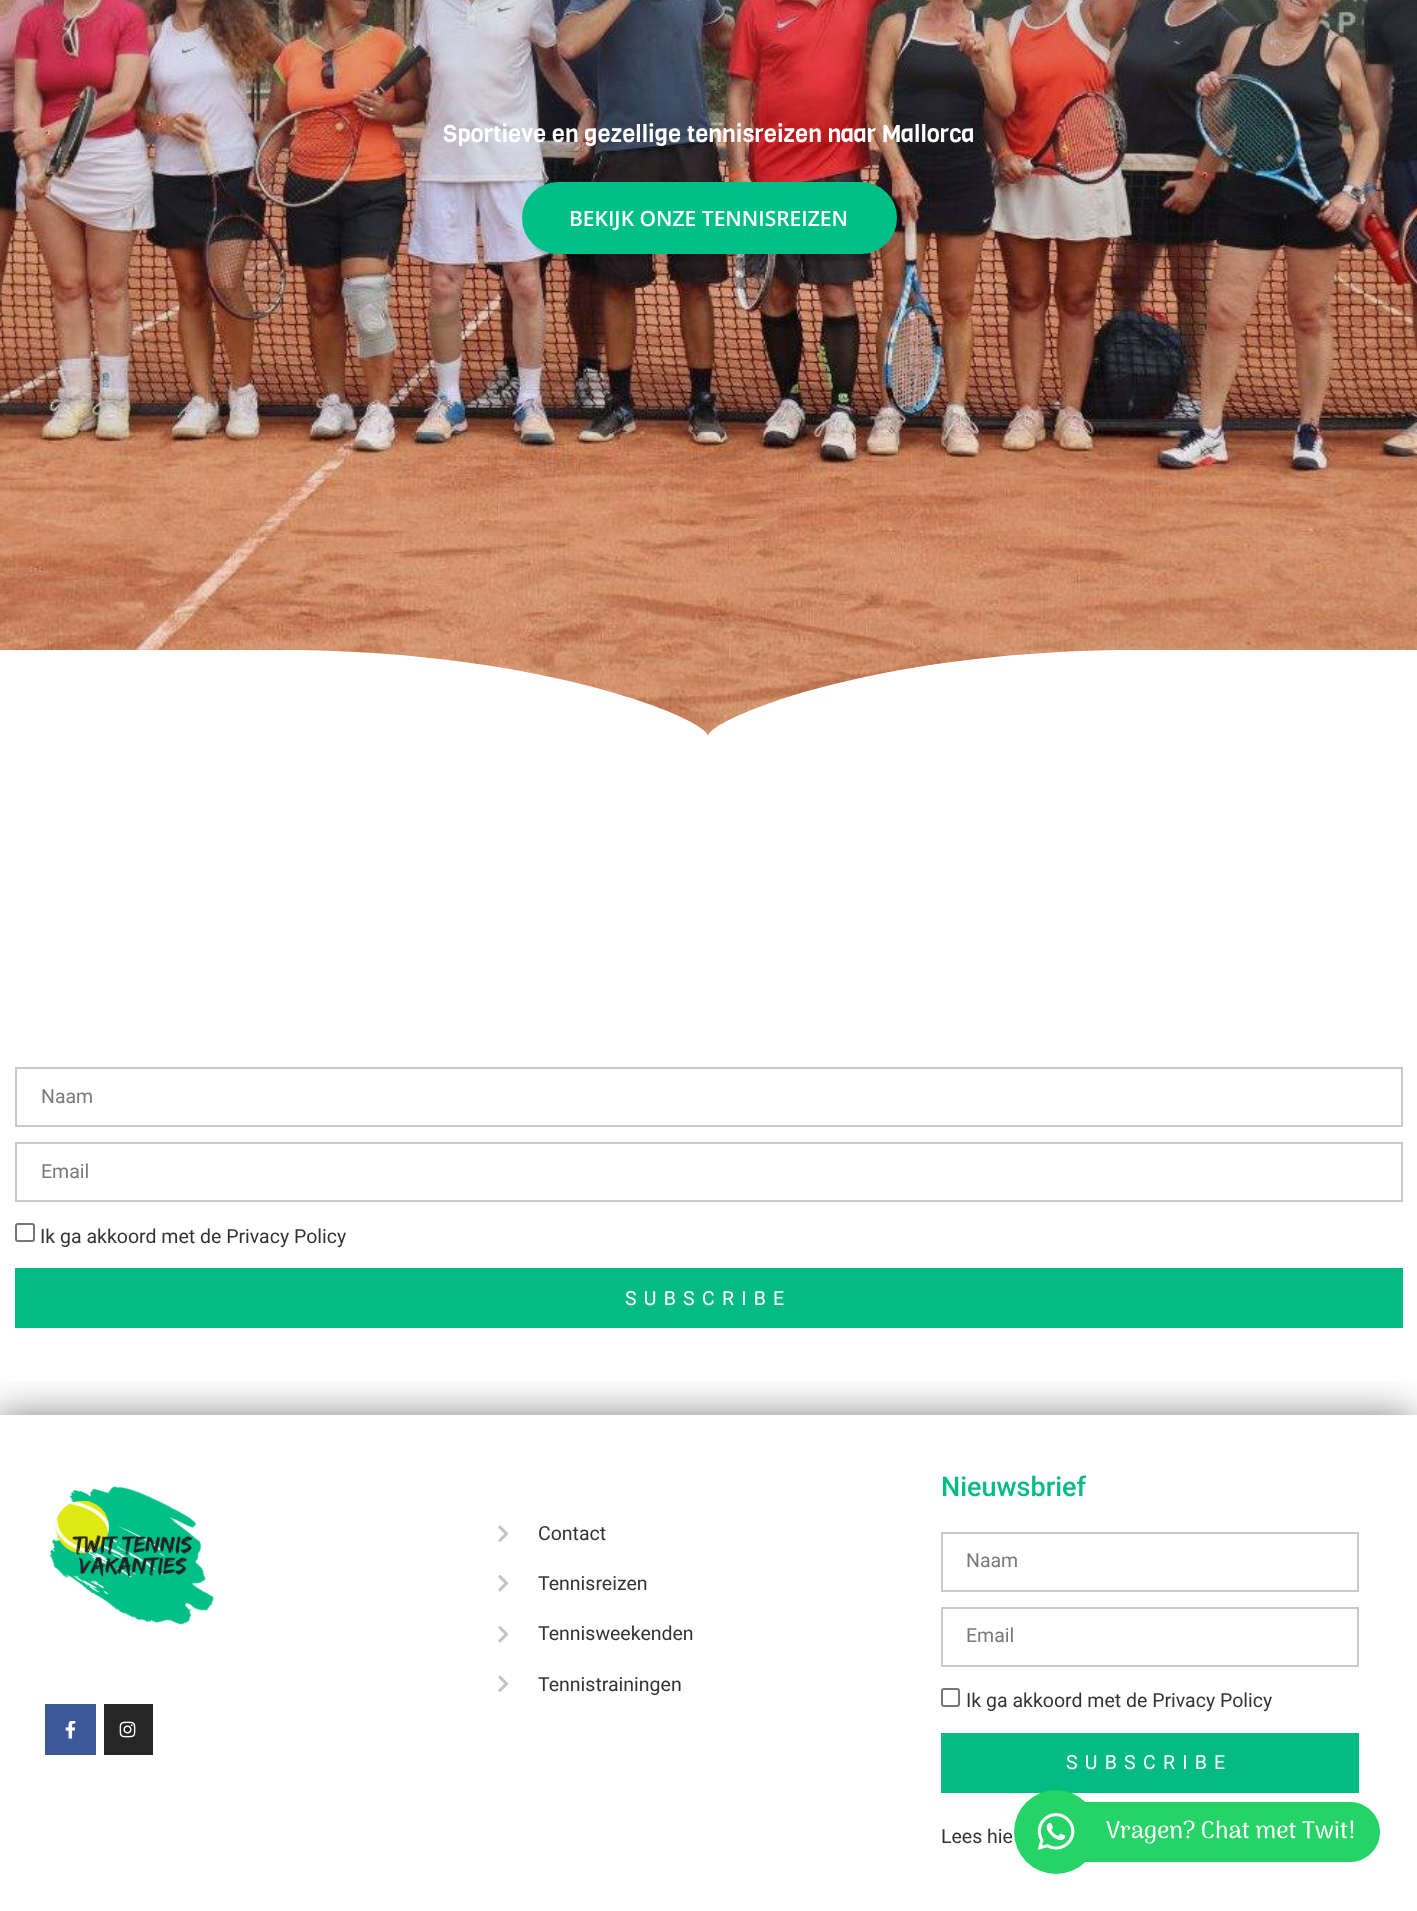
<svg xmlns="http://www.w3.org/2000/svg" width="1417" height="1911">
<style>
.a{font:24px Viga;fill:#fff}
.b{font:600 21px Open Sans;fill:#fff}
.c{font:19.5px Roboto;fill:#797a7c}
.d{font:19.5px Roboto;fill:#333}
.e{font:19.5px Roboto;letter-spacing:7.25px;fill:#fff}
.f{font:500 27px Roboto;fill:#04bb83}
.g{font:500 24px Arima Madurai;fill:#fff}
</style>
<defs>
<linearGradient id="g1" gradientUnits="userSpaceOnUse" x1="709" y1="-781" x2="709" y2="737"><stop offset="0.39" stop-color="#b1b8b6" stop-opacity="0.25"/><stop offset="0.8" stop-color="#001019" stop-opacity="0.04"/></linearGradient>
<clipPath id="clip1"><path d="M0 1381h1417v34H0z"/></clipPath>
</defs>
<rect width="100%" height="100%" fill="#fff"/>
<image href="1.png" x="0" y="0" width="1417" height="736"/>
<path fill="url(#g1)" d="M0 0h1417v736H0z"/>
<path fill="#0000001f" d="M531 241c6 12 18 20 32 20h303c20 0 36-16 36-36c0-9-3-17-9-24c3 5 4 11 4 17c0 19-16 36-36 36h-303c-11 0-21-5-27-13z"/>
<rect fill="#00bf87" stroke="#00bf87" stroke-width="3" x="523.5" y="183.5" width="372" height="69" rx="34.5"/>
<path fill="#fff" d="M1142 650c-265-1-433 69-434 86c-1-17-169-87-434-86c-163 0-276 0-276 0v88l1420-1v-87z"/>
<path fill="none" stroke="#c9c9c9" stroke-width="2" d="M16 1068h1386v58H16z"/>
<path fill="none" stroke="#c9c9c9" stroke-width="2" d="M16 1143h1386v58H16z"/>
<rect fill="none" stroke="#767676" stroke-width="2" x="16" y="1224" width="18" height="17" rx="2"/>
<path fill="#04bb83" d="M15 1268h1388v60H15z"/>
<g clip-path="url(#clip1)">
<path fill="#00000080" filter="blur(19.5px)" d="M-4 1415h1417v496H-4z"/>
</g>
<image href="2.png" x="49" y="1476" width="174" height="153"/>
<path fill="#3b5998" d="M45 1704h51v51H45z"/>
<image href="3.png" x="65" y="1721" width="11" height="18"/>
<path fill="#262626" d="M104 1704h49v51H104z"/>
<image href="4.png" x="119" y="1721" width="17" height="17"/>
<image href="5.png" x="498" y="1525" width="11" height="17"/>
<image href="6.png" x="498" y="1575" width="11" height="17"/>
<image href="6.png" x="498" y="1626" width="11" height="17"/>
<image href="5.png" x="498" y="1675" width="11" height="17"/>
<path fill="none" stroke="#c9c9c9" stroke-width="2" d="M942 1533h416v58H942z"/>
<path fill="none" stroke="#c9c9c9" stroke-width="2" d="M942 1608h416v58H942z"/>
<rect fill="none" stroke="#767676" stroke-width="2" x="942" y="1689" width="17" height="17" rx="2"/>
<path fill="#04bb83" d="M941 1733h418v60H941z"/>
<path fill="#25d366" d="M1083 1802h267c16.5 0 30 13.5 30 30c0 16.5-13.5 30-30 30h-267z"/>
<circle fill="#25d366" cx="1056" cy="1832" r="42"/>
<image href="7.png" x="1037" y="1813" width="38" height="37"/>
<text class="a" x="443" y="142">Sportieve en gezellige tennisreizen naar Mallorca</text>
<text class="b" x="569" y="226">BEKIJK ONZE TENNISREIZEN</text>
<text class="c" x="41" y="1103">Naam</text>
<text class="c" x="41" y="1178">Email</text>
<text class="d" x="40" y="1243">Ik ga akkoord met de Privacy Policy</text>
<text class="e" x="625" y="1305">SUBSCRIBE</text>
<text class="d" x="538" y="1540">Contact</text>
<text class="d" x="538" y="1590">Tennisreizen</text>
<text class="d" x="538" y="1640">Tennisweekenden</text>
<text class="d" x="538" y="1691">Tennistrainingen</text>
<text class="f" x="941" y="1496">Nieuwsbrief</text>
<text class="c" x="966" y="1567">Naam</text>
<text class="c" x="966" y="1642">Email</text>
<text class="d" x="966" y="1707">Ik ga akkoord met de Privacy Policy</text>
<text class="e" x="1066" y="1769">SUBSCRIBE</text>
<text class="d" x="941" y="1843">Lees hie</text>
<text class="g" x="1106" y="1838">Vragen? Chat met Twit!</text>
</svg>
